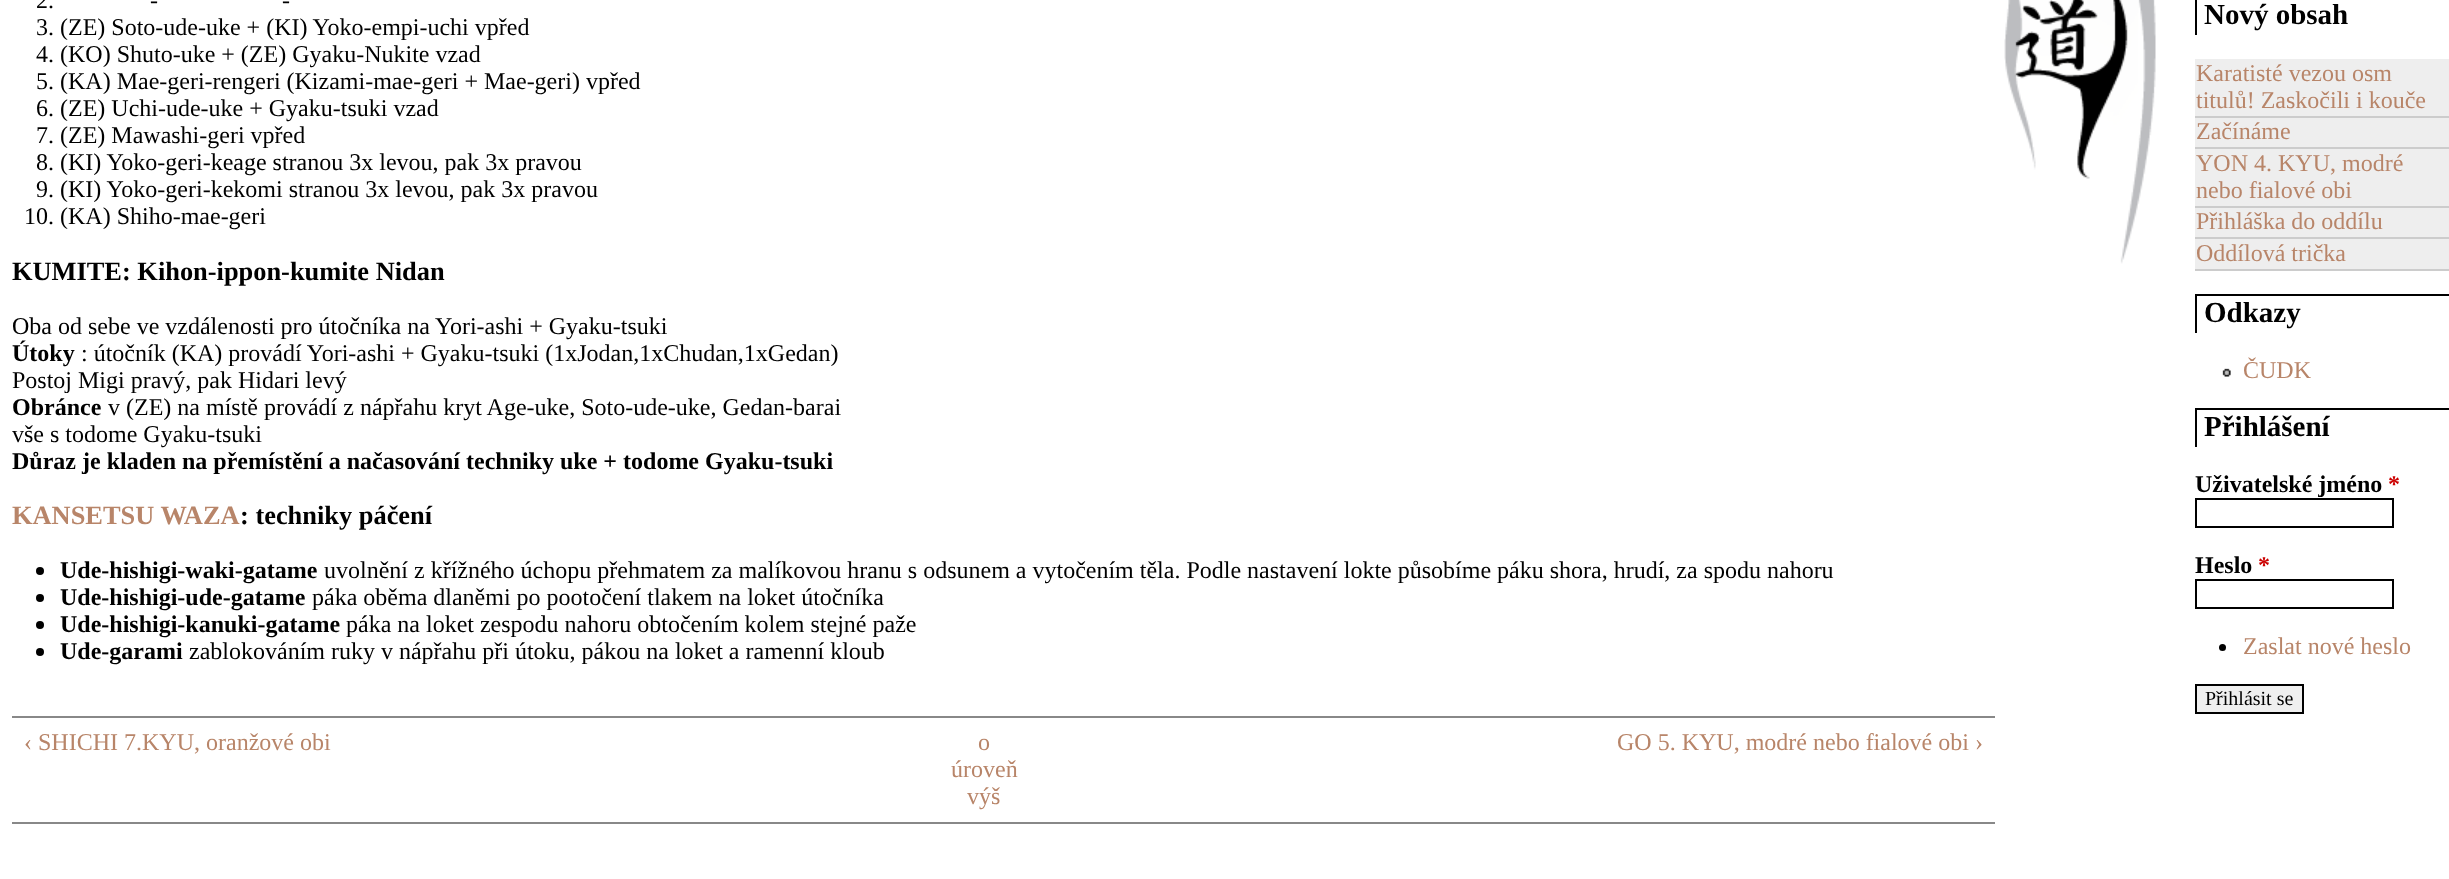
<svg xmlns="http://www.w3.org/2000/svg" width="2449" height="879">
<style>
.a{font:24px Liberation Serif;fill:#000}
.b{font:bold 26.4px Liberation Serif;fill:#000}
.c{font:bold 24px Liberation Serif;fill:#000}
.d{font:bold 26.4px Liberation Serif;fill:#b88569}
.e{font:24px Liberation Serif;fill:#b88569}
.f{font:bold 29px Liberation Serif;fill:#000}
.g{font:bold 24px Liberation Serif;fill:#c00}
.h{font:20px Liberation Serif;fill:#000}
</style>
<rect width="100%" height="100%" fill="#fff"/>
<image href="1.png" x="2004" y="0" width="152" height="264"/>
<circle fill="#000" cx="40" cy="571" r="4"/>
<circle fill="#000" cx="40" cy="598" r="4"/>
<circle fill="#000" cx="40" cy="625" r="4"/>
<circle fill="#000" cx="40" cy="652" r="4"/>
<path fill="#888" d="M12 716h1983v2H12z"/>
<path fill="#888" d="M12 822h1983v2H12z"/>
<path fill="#000" d="M2195 0h2v35H2195z"/>
<path fill="#eee" d="M2195 59h254v57H2195z"/>
<path fill="#ccc" d="M2195 116h254v2H2195z"/>
<path fill="#eee" d="M2195 118h254v29H2195z"/>
<path fill="#ccc" d="M2195 147h254v2H2195z"/>
<path fill="#eee" d="M2195 149h254v57H2195z"/>
<path fill="#ccc" d="M2195 206h254v2H2195z"/>
<path fill="#eee" d="M2195 208h254v29H2195z"/>
<path fill="#ccc" d="M2195 237h254v2H2195z"/>
<path fill="#eee" d="M2195 239h254v30H2195z"/>
<path fill="#ccc" d="M2195 269h254v2H2195z"/>
<path fill="#000" d="M2195 294h254v2H2195z"/>
<path fill="#000" d="M2195 294h2v39H2195z"/>
<image href="2.png" x="2222" y="368" width="9" height="9"/>
<path fill="#000" d="M2195 408h254v2H2195z"/>
<path fill="#000" d="M2195 408h2v39H2195z"/>
<path fill="none" stroke="#000" stroke-width="2" d="M2196 499h197v28H2196z"/>
<path fill="none" stroke="#000" stroke-width="2" d="M2196 580h197v28H2196z"/>
<circle fill="#000" cx="2222.5" cy="647.5" r="3.5"/>
<path fill="#efefef" stroke="#000" stroke-width="2" d="M2196 685h107v28H2196z"/>
<text class="a" x="36" y="8">2.</text>
<text class="a" x="150" y="8">-</text>
<text class="a" x="282" y="8">-</text>
<text class="a" x="36" y="35">3. (ZE) Soto-ude-uke + (KI) Yoko-empi-uchi vpřed</text>
<text class="a" x="36" y="62">4. (KO) Shuto-uke + (ZE) Gyaku-Nukite vzad</text>
<text class="a" x="36" y="89">5. (KA) Mae-geri-rengeri (Kizami-mae-geri + Mae-geri) vpřed</text>
<text class="a" x="36" y="116">6. (ZE) Uchi-ude-uke + Gyaku-tsuki vzad</text>
<text class="a" x="36" y="143">7. (ZE) Mawashi-geri vpřed</text>
<text class="a" x="36" y="170">8. (KI) Yoko-geri-keage stranou 3x levou, pak 3x pravou</text>
<text class="a" x="36" y="197">9. (KI) Yoko-geri-kekomi stranou 3x levou, pak 3x pravou</text>
<text class="a" x="24" y="224">10. (KA) Shiho-mae-geri</text>
<text class="b" x="12" y="280">KUMITE: Kihon-ippon-kumite Nidan</text>
<text class="a" x="12" y="334">Oba od sebe ve vzdálenosti pro útočníka na Yori-ashi + Gyaku-tsuki</text>
<text class="c" x="12" y="361">Útoky</text>
<text class="a" x="81" y="361">: útočník (KA) provádí Yori-ashi + Gyaku-tsuki (1xJodan,1xChudan,1xGedan)</text>
<text class="a" x="12" y="388">Postoj Migi pravý, pak Hidari levý</text>
<text class="c" x="12" y="415">Obránce</text>
<text class="a" x="108" y="415">v (ZE) na místě provádí z nápřahu kryt Age-uke, Soto-ude-uke, Gedan-barai</text>
<text class="a" x="12" y="442">vše s todome Gyaku-tsuki</text>
<text class="c" x="12" y="469">Důraz je kladen na přemístění a načasování techniky uke + todome Gyaku-tsuki</text>
<text class="d" x="12" y="524">KANSETSU WAZA</text>
<text class="b" x="240" y="524">: techniky páčení</text>
<text class="c" x="60" y="578">Ude-hishigi-waki-gatame</text>
<text class="a" x="324" y="578">uvolnění z křížného úchopu přehmatem za malíkovou hranu s odsunem a vytočením těla. Podle nastavení lokte působíme páku shora, hrudí, za spodu nahoru</text>
<text class="c" x="60" y="605">Ude-hishigi-ude-gatame</text>
<text class="a" x="312" y="605">páka oběma dlaněmi po pootočení tlakem na loket útočníka</text>
<text class="c" x="60" y="632">Ude-hishigi-kanuki-gatame</text>
<text class="a" x="346" y="632">páka na loket zespodu nahoru obtočením kolem stejné paže</text>
<text class="c" x="60" y="659">Ude-garami</text>
<text class="a" x="189" y="659">zablokováním ruky v nápřahu při útoku, pákou na loket a ramenní kloub</text>
<text class="e" x="24" y="750">‹ SHICHI 7.KYU, oranžové obi</text>
<text class="e" x="978" y="750">o</text>
<text class="e" x="951" y="777">úroveň</text>
<text class="e" x="967" y="804">výš</text>
<text class="e" x="1617" y="750">GO 5. KYU, modré nebo fialové obi ›</text>
<text class="f" x="2204" y="24">Nový obsah</text>
<text class="e" x="2196" y="81">Karatisté vezou osm</text>
<text class="e" x="2196" y="108">titulů! Zaskočili i kouče</text>
<text class="e" x="2196" y="139">Začínáme</text>
<text class="e" x="2196" y="171">YON 4. KYU, modré</text>
<text class="e" x="2196" y="198">nebo fialové obi</text>
<text class="e" x="2196" y="229">Přihláška do oddílu</text>
<text class="e" x="2196" y="261">Oddílová trička</text>
<text class="f" x="2204" y="322">Odkazy</text>
<text class="e" x="2243" y="378">ČUDK</text>
<text class="f" x="2204" y="436">Přihlášení</text>
<text class="c" x="2195" y="492">Uživatelské jméno</text>
<text class="g" x="2388" y="492">*</text>
<text class="c" x="2195" y="573">Heslo</text>
<text class="g" x="2258" y="573">*</text>
<text class="e" x="2243" y="654">Zaslat nové heslo</text>
<text class="h" x="2205" y="705">Přihlásit se</text>
</svg>
